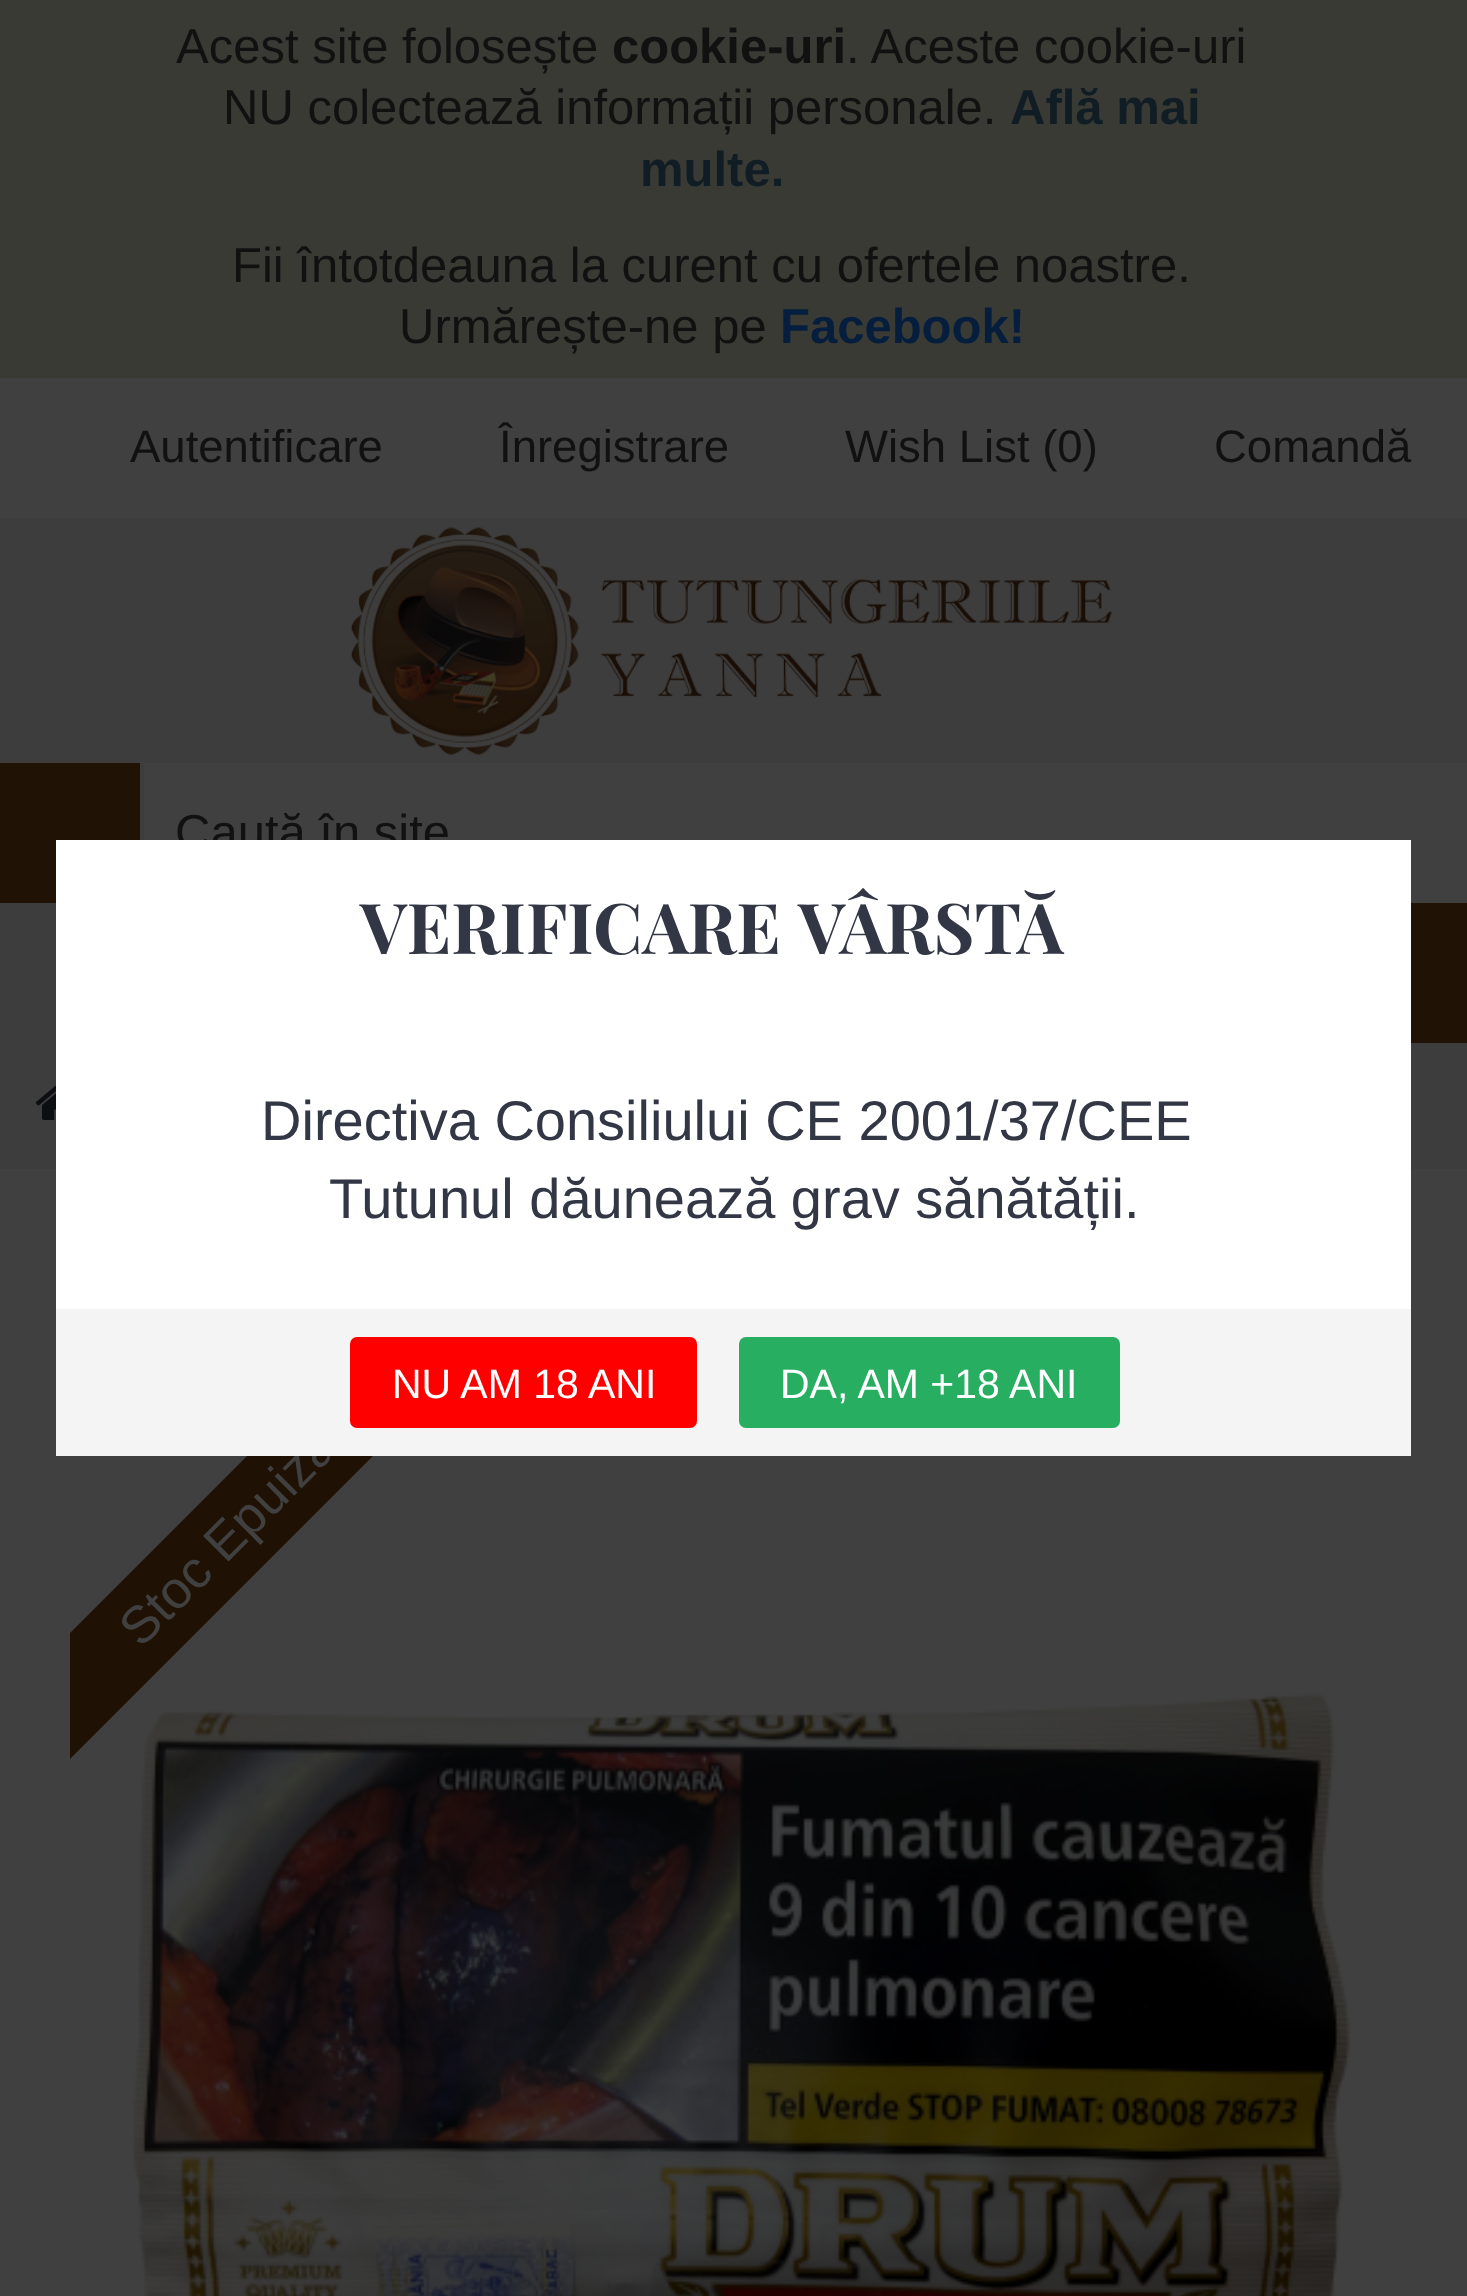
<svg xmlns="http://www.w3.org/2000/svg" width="1467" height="2296">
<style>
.a{font:49px Liberation Sans;fill:#111112}
.b{font:bold 49px Liberation Sans;fill:#111112}
.c{font:bold 49px Liberation Sans;fill:#111d24}
.d{font:bold 49px Liberation Sans;fill:#061e3d}
.e{font:45.5px Liberation Sans;fill:#111112}
.f{font:bold 70px Playfair Display;fill:#333745}
.g{font:56px Liberation Sans;fill:#333745}
.h{font:52.5px Liberation Sans;fill:#404040}
.i{font:41px Liberation Sans;fill:#fff}
</style>
<defs>
<clipPath id="clip1"><path d="M70 1383h1330v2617H70z"/></clipPath>
</defs>
<rect width="100%" height="100%" fill="#3d3d3d"/>
<path fill="#3a3a35" d="M0 0h1467v378H0z"/>
<path fill="#404040" d="M0 378h1467v140H0z"/>
<image href="1.png" x="350" y="527" width="762" height="228"/>
<path fill="#201204" d="M0 763h140v140H0z"/>
<path fill="#404040" d="M144 763h1323v140H144z"/>
<path fill="#201204" d="M1411 903h56v140H1411z"/>
<path fill="#404040" d="M0 1169h1467v1127H0z"/>
<image href="2.png" x="35" y="1085" width="21" height="35"/>
<image href="3.png" x="132" y="1693" width="1219" height="603"/>
<g clip-path="url(#clip1)">
<path fill="#1f1204" d="M-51 1754l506-506l63 63l-506 506z"/>
</g>
<text class="a" x="176" y="63">Acest site folosește</text>
<text class="b" x="612" y="63">cookie-uri</text>
<text class="a" x="846" y="63">. Aceste cookie-uri</text>
<text class="a" x="223" y="124">NU colectează informații personale.</text>
<text class="c" x="1010" y="124">Află mai</text>
<text class="c" x="640" y="186">multe.</text>
<text class="a" x="232" y="282">Fii întotdeauna la curent cu ofertele noastre.</text>
<text class="a" x="399" y="343">Urmărește-ne pe</text>
<text class="d" x="780" y="343">Facebook!</text>
<text class="e" x="130" y="462">Autentificare</text>
<text class="e" x="499" y="462">Înregistrare</text>
<text class="e" x="845" y="462">Wish List (0)</text>
<text class="e" x="1214" y="462">Comandă</text>
<text class="a" x="175" y="849">Caută în site</text>
<path fill="#fff" d="M56 840h1355v469H56z"/>
<text class="f" x="360" y="954" word-spacing="4">VERIFICARE VÂRSTĂ</text>
<text class="g" x="261" y="1140">Directiva Consiliului CE 2001/37/CEE</text>
<text class="g" x="329" y="1218">Tutunul dăunează grav sănătății.</text>
<text class="h" x="141" y="1649" transform="rotate(-45 141 1649)">Stoc Epuizat</text>
<path fill="#f4f4f4" d="M56 1309h1355v147H56z"/>
<rect fill="#27ae60" x="739" y="1337" width="381" height="91" rx="7"/>
<text class="i" x="780" y="1398">DA, AM +18 ANI</text>
<rect fill="#f00" x="350" y="1337" width="347" height="91" rx="7"/>
<text class="i" x="392" y="1398">NU AM 18 ANI</text>
</svg>
